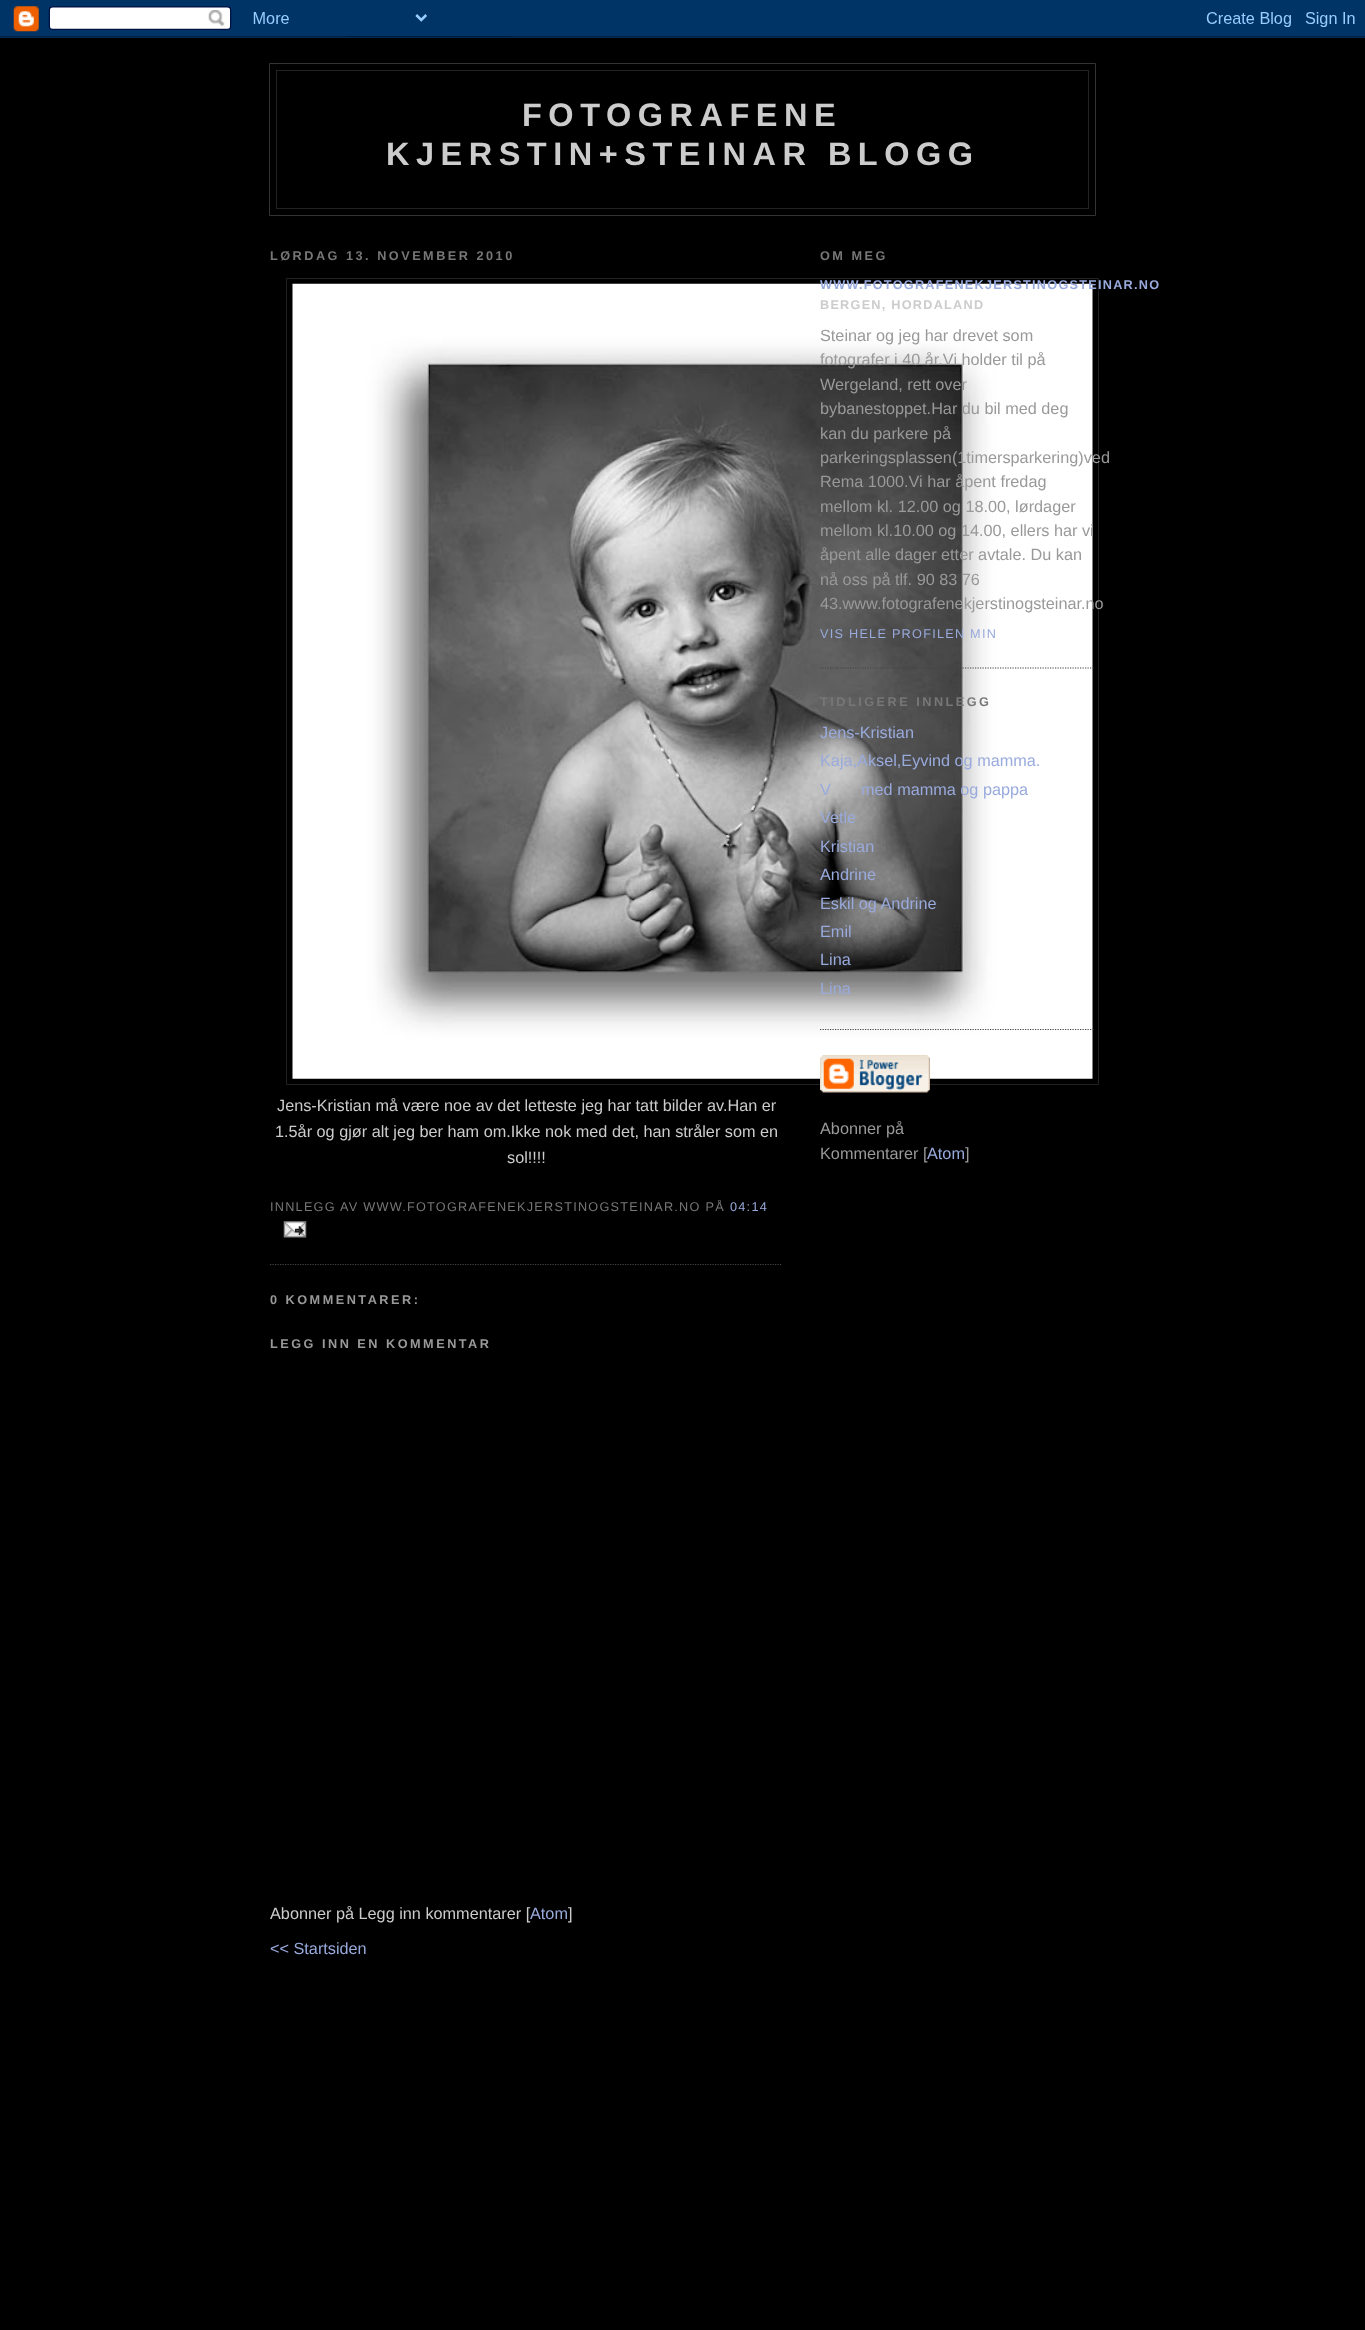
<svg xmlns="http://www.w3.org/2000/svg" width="1365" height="2330">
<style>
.a{font:bold 32.5px Liberation Sans;letter-spacing:6.5px;fill:#ccc}
.b{font:bold 12.7px Liberation Sans;letter-spacing:2.5px;fill:#777}
.c{font:16.25px Liberation Sans;fill:#ccc}
.d{font:12.7px Liberation Sans;letter-spacing:1.25px;fill:#777}
.e{font:12.7px Liberation Sans;letter-spacing:1.25px;fill:#9ad}
.f{font:bold 12.7px Liberation Sans;letter-spacing:2.5px;fill:#999}
.g{font:16.25px Liberation Sans;fill:#9ad}
.h{font:bold 12.7px Liberation Sans;letter-spacing:1.25px;fill:#9ad}
.i{font:bold 12.7px Liberation Sans;letter-spacing:1.25px;fill:#ccc}
.j{font:16.25px Liberation Sans;fill:#999}
</style>
<rect width="100%" height="100%" fill="#000"/>
<image href="1.png" x="0" y="0" width="1365" height="38"/>
<path fill="none" stroke="#333" d="M269.5 63.5h826v152H269.5z"/>
<path fill="#222" d="M276 70h813v1H276z"/>
<path fill="#222" d="M1088 70h1v139H1088z"/>
<path fill="#222" d="M276 70h1v113H276z"/>
<path fill="#222" d="M276 208h813v1H276z"/>
<path fill="#222" d="M276 183h1v26H276z"/>
<path fill="none" stroke="#444" stroke-width="1.2" stroke-dasharray="1.25 1.25" d="M270 1264.5h512.5"/>
<path fill="none" stroke="#222" d="M286.5 278.5h812v806H286.5z"/>
<image href="2.png" x="292" y="283" width="801" height="796"/>
<image href="3.png" x="283" y="1221" width="24" height="17"/>
<path fill="none" stroke="#444" stroke-width="1.2" stroke-dasharray="1.25 1.25" d="M820 668h275"/>
<path fill="none" stroke="#444" stroke-width="1.2" stroke-dasharray="1.25 1.25" d="M820 1029.5h275"/>
<image href="4.png" x="820" y="1055" width="110" height="38"/>
<text class="a" x="522" y="126">FOTOGRAFENE</text>
<text class="a" x="386" y="165">KJERSTIN+STEINAR BLOGG</text>
<text class="b" x="270" y="260">LØRDAG 13. NOVEMBER 2010</text>
<text class="c" x="277" y="1111">Jens-Kristian må være noe av det letteste jeg har tatt bilder av.Han er</text>
<text class="c" x="275" y="1137">1.5år og gjør alt jeg ber ham om.Ikke nok med det, han stråler som en</text>
<text class="c" x="507" y="1163">sol!!!!</text>
<text class="d" x="270" y="1211">INNLEGG AV WWW.FOTOGRAFENEKJERSTINOGSTEINAR.NO PÅ</text>
<text class="e" x="730" y="1211">04:14</text>
<text class="f" x="270" y="1304">0 KOMMENTARER:</text>
<text class="f" x="270" y="1348">LEGG INN EN KOMMENTAR</text>
<text class="c" x="270" y="1919">Abonner på Legg inn kommentarer [</text>
<text class="g" x="530" y="1919">Atom</text>
<text class="c" x="568" y="1919">]</text>
<text class="g" x="270" y="1954">&lt;&lt; Startsiden</text>
<text class="b" x="820" y="260">OM MEG</text>
<text class="h" x="820" y="289">WWW.FOTOGRAFENEKJERSTINOGSTEINAR.NO</text>
<text class="i" x="820" y="309">BERGEN, HORDALAND</text>
<text class="j" x="820" y="341">Steinar og jeg har drevet som</text>
<text class="j" x="820" y="365">fotografer i 40 år.Vi holder til på</text>
<text class="j" x="820" y="390">Wergeland, rett over</text>
<text class="j" x="820" y="414">bybanestoppet.Har du bil med deg</text>
<text class="j" x="820" y="439">kan du parkere på</text>
<text class="j" x="820" y="463">parkeringsplassen(1timersparkering)ved</text>
<text class="j" x="820" y="487">Rema 1000.Vi har åpent fredag</text>
<text class="j" x="820" y="512">mellom kl. 12.00 og 18.00, lørdager</text>
<text class="j" x="820" y="536">mellom kl.10.00 og 14.00, ellers har vi</text>
<text class="j" x="820" y="560">åpent alle dager etter avtale. Du kan</text>
<text class="j" x="820" y="585">nå oss på tlf. 90 83 76</text>
<text class="j" x="820" y="609">43.www.fotografenekjerstinogsteinar.no</text>
<text class="e" x="820" y="638">VIS HELE PROFILEN MIN</text>
<text class="b" x="820" y="706">TIDLIGERE INNLEGG</text>
<text class="g" x="820" y="738">Jens-Kristian</text>
<text class="g" x="820" y="766">Kaja,Aksel,Eyvind og mamma.</text>
<text class="g" x="820" y="795">V</text>
<text class="g" x="861" y="795">med mamma og pappa</text>
<text class="g" x="820" y="823">Vetle</text>
<text class="g" x="820" y="852">Kristian</text>
<text class="g" x="820" y="880">Andrine</text>
<text class="g" x="820" y="909">Eskil og Andrine</text>
<text class="g" x="820" y="937">Emil</text>
<text class="g" x="820" y="965">Lina</text>
<text class="g" x="820" y="994">Lina</text>
<text class="j" x="820" y="1134">Abonner på</text>
<text class="j" x="820" y="1159">Kommentarer [</text>
<text class="g" x="927" y="1159">Atom</text>
<text class="j" x="965" y="1159">]</text>
</svg>
